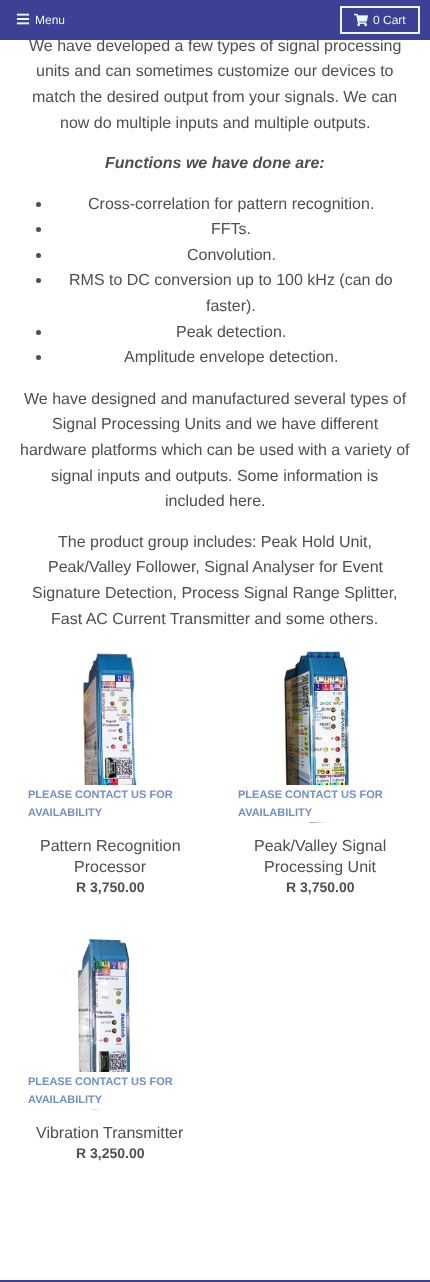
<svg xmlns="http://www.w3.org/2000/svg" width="430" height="1282">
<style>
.a{font:16px Liberation Sans;fill:#4f4f4f}
.b{font:12px Liberation Sans;fill:#e9f9ff}
.c{font:italic bold 16px Liberation Sans;fill:#4f4f4f}
.d{font:bold 11px Liberation Sans;fill:#718fc8}
.e{font:bold 14px Liberation Sans;fill:#4f4f4f}
</style>
<rect width="100%" height="100%" fill="#fff"/>
<circle fill="#4f4f4f" cx="38.5" cy="204.5" r="2.5"/>
<circle fill="#4f4f4f" cx="38.5" cy="229.5" r="2.5"/>
<circle fill="#4f4f4f" cx="38.5" cy="255.5" r="2.5"/>
<circle fill="#4f4f4f" cx="38.5" cy="280.5" r="2.5"/>
<circle fill="#4f4f4f" cx="38.5" cy="332.5" r="2.5"/>
<circle fill="#4f4f4f" cx="38.5" cy="357.5" r="2.5"/>
<image href="3.png" x="83" y="651" width="54" height="134"/>
<image href="4.png" x="283" y="650" width="68" height="173"/>
<path fill="#fff" d="M285 785h66v37H285z"/>
<image href="5.png" x="77" y="938" width="55" height="172"/>
<path fill="#fff" d="M79 1072h53v37H79z"/>
<path fill="#3e4095" d="M0 1280h430v2H0z"/>
<text class="a" x="29" y="51">We have developed a few types of signal processing</text>
<path fill="#3e4095" d="M0 0h430v40H0z"/>
<path fill="none" stroke="#e9f9ff" stroke-width="2" d="M341 7h78v26H341z"/>
<image href="2.png" x="354" y="13" width="14" height="14"/>
<image href="1.png" x="16" y="13" width="14" height="12"/>
<text class="b" x="373" y="24">0 Cart</text>
<text class="b" x="35" y="24">Menu</text>
<text class="a" x="36" y="76">units and can sometimes customize our devices to</text>
<text class="a" x="32" y="102">match the desired output from your signals. We can</text>
<text class="a" x="60" y="128">now do multiple inputs and multiple outputs.</text>
<text class="c" x="105" y="168">Functions we have done are:</text>
<text class="a" x="88" y="209">Cross-correlation for pattern recognition.</text>
<text class="a" x="211" y="234">FFTs.</text>
<text class="a" x="187" y="260">Convolution.</text>
<text class="a" x="69" y="285">RMS to DC conversion up to 100 kHz (can do</text>
<text class="a" x="206" y="311">faster).</text>
<text class="a" x="176" y="337">Peak detection.</text>
<text class="a" x="124" y="362">Amplitude envelope detection.</text>
<text class="a" x="24" y="404">We have designed and manufactured several types of</text>
<text class="a" x="52" y="429">Signal Processing Units and we have different</text>
<text class="a" x="20" y="455">hardware platforms which can be used with a variety of</text>
<text class="a" x="51" y="481">signal inputs and outputs. Some information is</text>
<text class="a" x="165" y="506">included here.</text>
<text class="a" x="58" y="547">The product group includes: Peak Hold Unit,</text>
<text class="a" x="48" y="572">Peak/Valley Follower, Signal Analyser for Event</text>
<text class="a" x="32" y="598">Signature Detection, Process Signal Range Splitter,</text>
<text class="a" x="51" y="624">Fast AC Current Transmitter and some others.</text>
<text class="d" x="28" y="798">PLEASE CONTACT US FOR</text>
<text class="d" x="28" y="816">AVAILABILITY</text>
<text class="a" x="40" y="851">Pattern Recognition</text>
<text class="a" x="74" y="872">Processor</text>
<text class="e" x="76" y="892">R 3,750.00</text>
<text class="d" x="238" y="798">PLEASE CONTACT US FOR</text>
<text class="d" x="238" y="816">AVAILABILITY</text>
<text class="a" x="254" y="851">Peak/Valley Signal</text>
<text class="a" x="264" y="872">Processing Unit</text>
<text class="e" x="286" y="892">R 3,750.00</text>
<text class="d" x="28" y="1085">PLEASE CONTACT US FOR</text>
<text class="d" x="28" y="1103">AVAILABILITY</text>
<text class="a" x="36" y="1138">Vibration Transmitter</text>
<text class="e" x="76" y="1158">R 3,250.00</text>
</svg>
